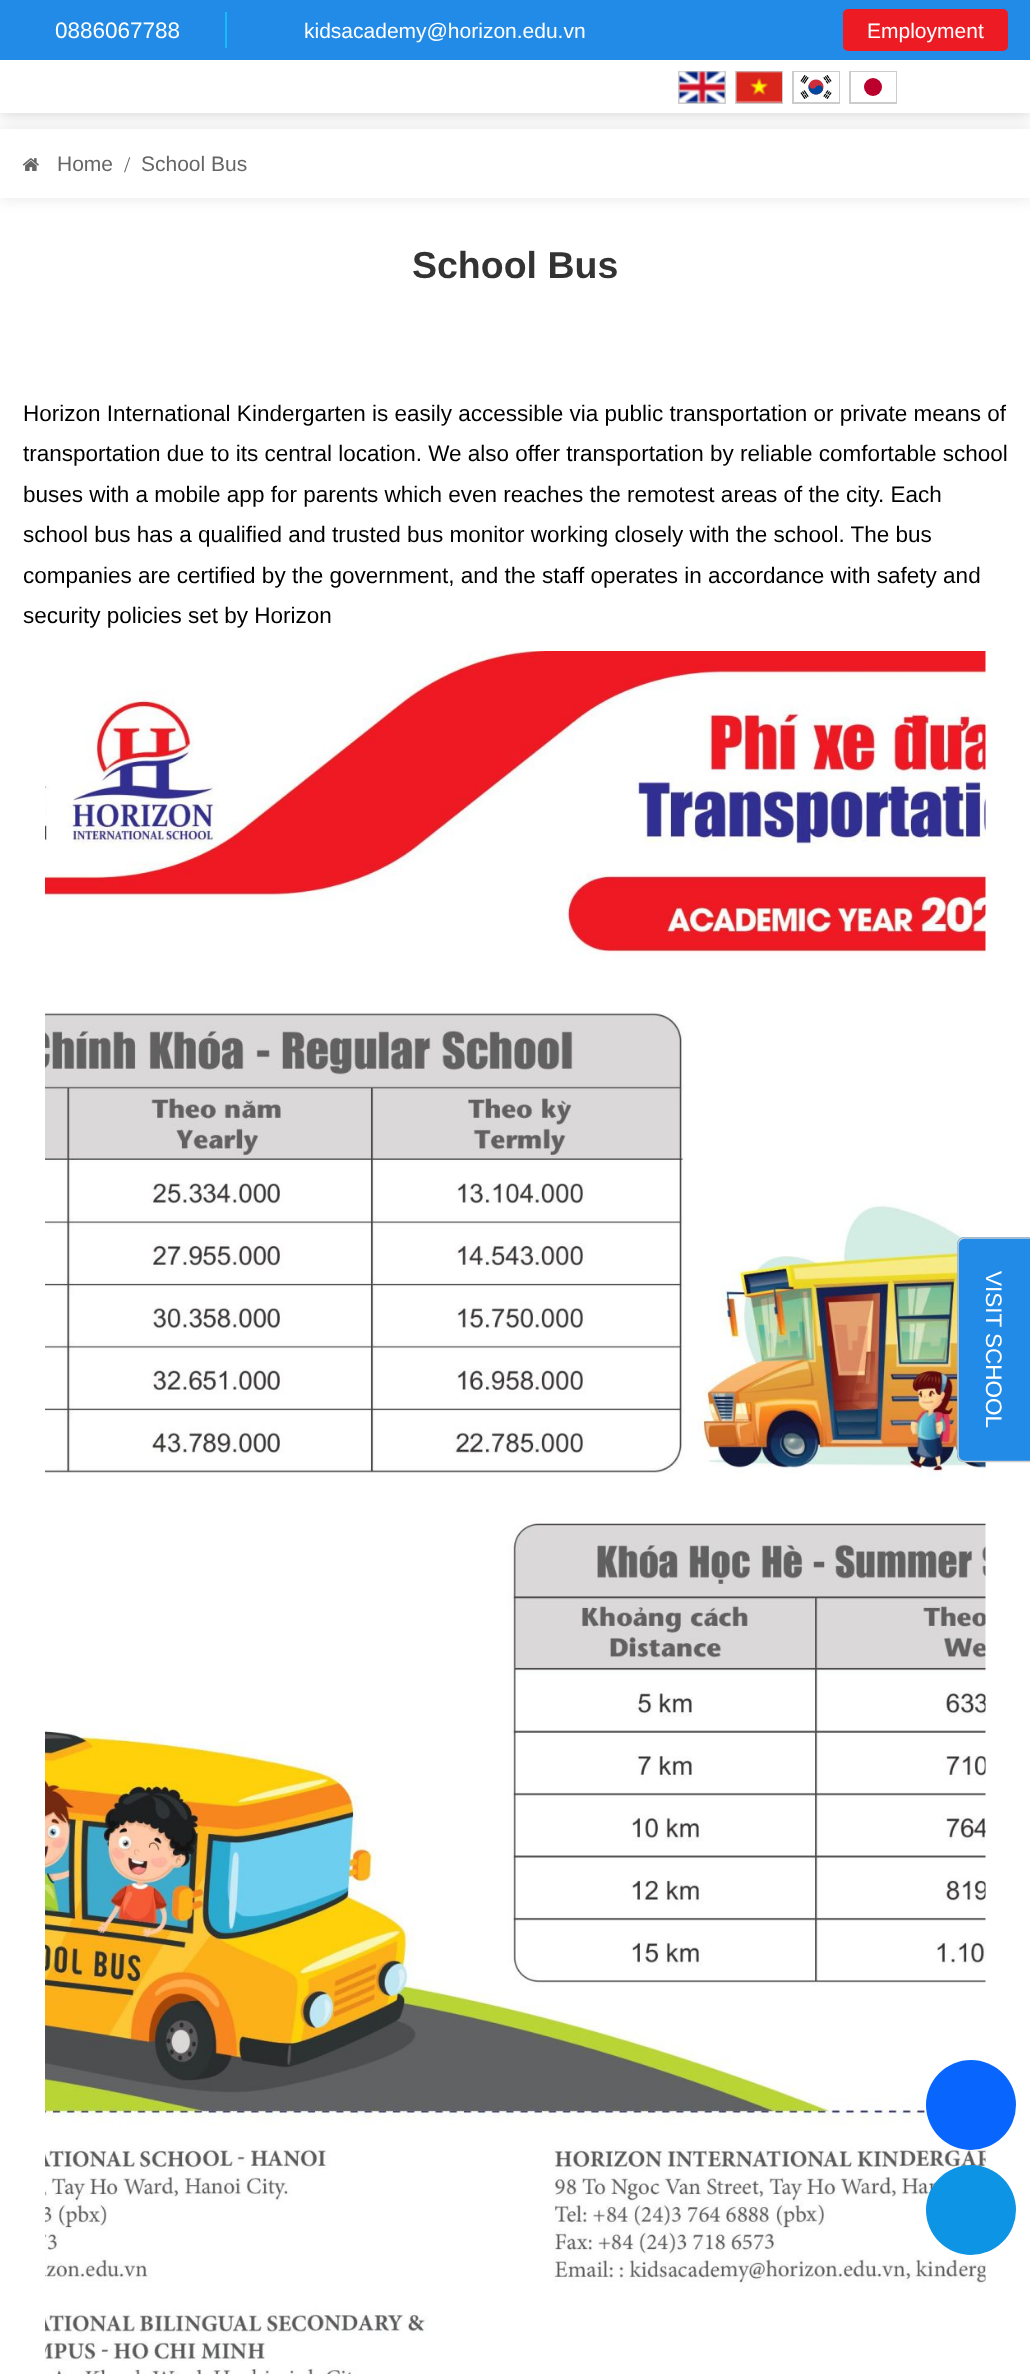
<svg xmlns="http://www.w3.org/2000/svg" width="1030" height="2374">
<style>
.a{font:22.5px Liberation Sans;fill:#fff}
.b{font:21px Liberation Sans;fill:#fff}
.c{font:21px Liberation Sans;fill:#666}
.d{font:22.5px Liberation Serif;fill:#666}
.e{font:bold 37.5px Liberation Sans;fill:#333}
.f{font:22.5px Liberation Sans;fill:#000}
</style>
<defs>
<clipPath id="clip1"><path d="M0 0h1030v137h-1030zm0 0h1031v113h-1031z" clip-rule="evenodd"/></clipPath>
<clipPath id="clip2"><path d="M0 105h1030v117h-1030zm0 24h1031v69h-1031z" clip-rule="evenodd"/></clipPath>
</defs>
<rect width="100%" height="100%" fill="#fff"/>
<g clip-path="url(#clip1)">
<path fill="#00000033" filter="blur(7.5px)" d="M0 0h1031v113H0z"/>
</g>
<g clip-path="url(#clip2)">
<path fill="#0000001a" filter="blur(7.5px)" d="M0 129h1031v69H0z"/>
</g>
<path fill="#ffffffe6" d="M0 112h1030v1H0z"/>
<path fill="#218be7" d="M0 0h1030v60H0z"/>
<path fill="#18bbf8" d="M225 12h2v36H225z"/>
<rect fill="#ed1c24" stroke="#ed1c24" stroke-width="2" x="844" y="10" width="163" height="40" rx="4"/>
<path fill="none" stroke="#ccc" stroke-width="2" d="M679 72h46v31H679z"/>
<image href="1.png" x="679" y="71" width="46" height="32"/>
<path fill="none" stroke="#ccc" stroke-width="2" d="M736 72h46v31H736z"/>
<image href="2.png" x="736" y="71" width="46" height="32"/>
<path fill="none" stroke="#ccc" stroke-width="2" d="M793 72h46v31H793z"/>
<image href="3.png" x="794" y="72" width="45" height="30"/>
<path fill="none" stroke="#ccc" stroke-width="2" d="M850 72h46v31H850z"/>
<path fill="#fff" d="M851 72h45v30H851z"/>
<circle fill="#bc002d" cx="873" cy="87" r="9"/>
<image href="4.png" x="22" y="158" width="17" height="13"/>
<image href="5.png" x="45" y="651" width="941" height="1723"/>
<path fill="#218be7" d="M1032 1237v225h-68c-4 0-7-3-7-7v-210c0-4 3-8 7-8z"/>
<path fill="none" stroke="#ccc" stroke-width="1.5" d="M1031 1238v223.5h-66.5c-3.5 0-6.5-3-6.5-7v-210c0-3.5 3-6.5 6.5-6.5z"/>
<circle fill="#0866ff" cx="971" cy="2105" r="45"/>
<circle fill="#0d94e4" cx="971" cy="2210" r="45"/>
<text class="a" x="55" y="38">0886067788</text>
<text class="b" x="304" y="38">kidsacademy@horizon.edu.vn</text>
<text class="b" x="867" y="38">Employment</text>
<text class="c" x="57" y="171">Home</text>
<text class="d" x="124" y="172">/</text>
<text class="c" x="141" y="171">School Bus</text>
<text class="e" x="412" y="278">School Bus</text>
<text class="f" x="23" y="421">Horizon International Kindergarten is easily accessible via public transportation or private means of</text>
<text class="f" x="23" y="461">transportation due to its central location. We also offer transportation by reliable comfortable school</text>
<text class="f" x="23" y="502">buses with a mobile app for parents which even reaches the remotest areas of the city. Each</text>
<text class="f" x="23" y="542">school bus has a qualified and trusted bus monitor working closely with the school. The bus</text>
<text class="f" x="23" y="583">companies are certified by the government, and the staff operates in accordance with safety and</text>
<text class="f" x="23" y="623">security policies set by Horizon</text>
<text class="a" x="986" y="1271" transform="rotate(90 986 1271)">VISIT SCHOOL</text>
</svg>
